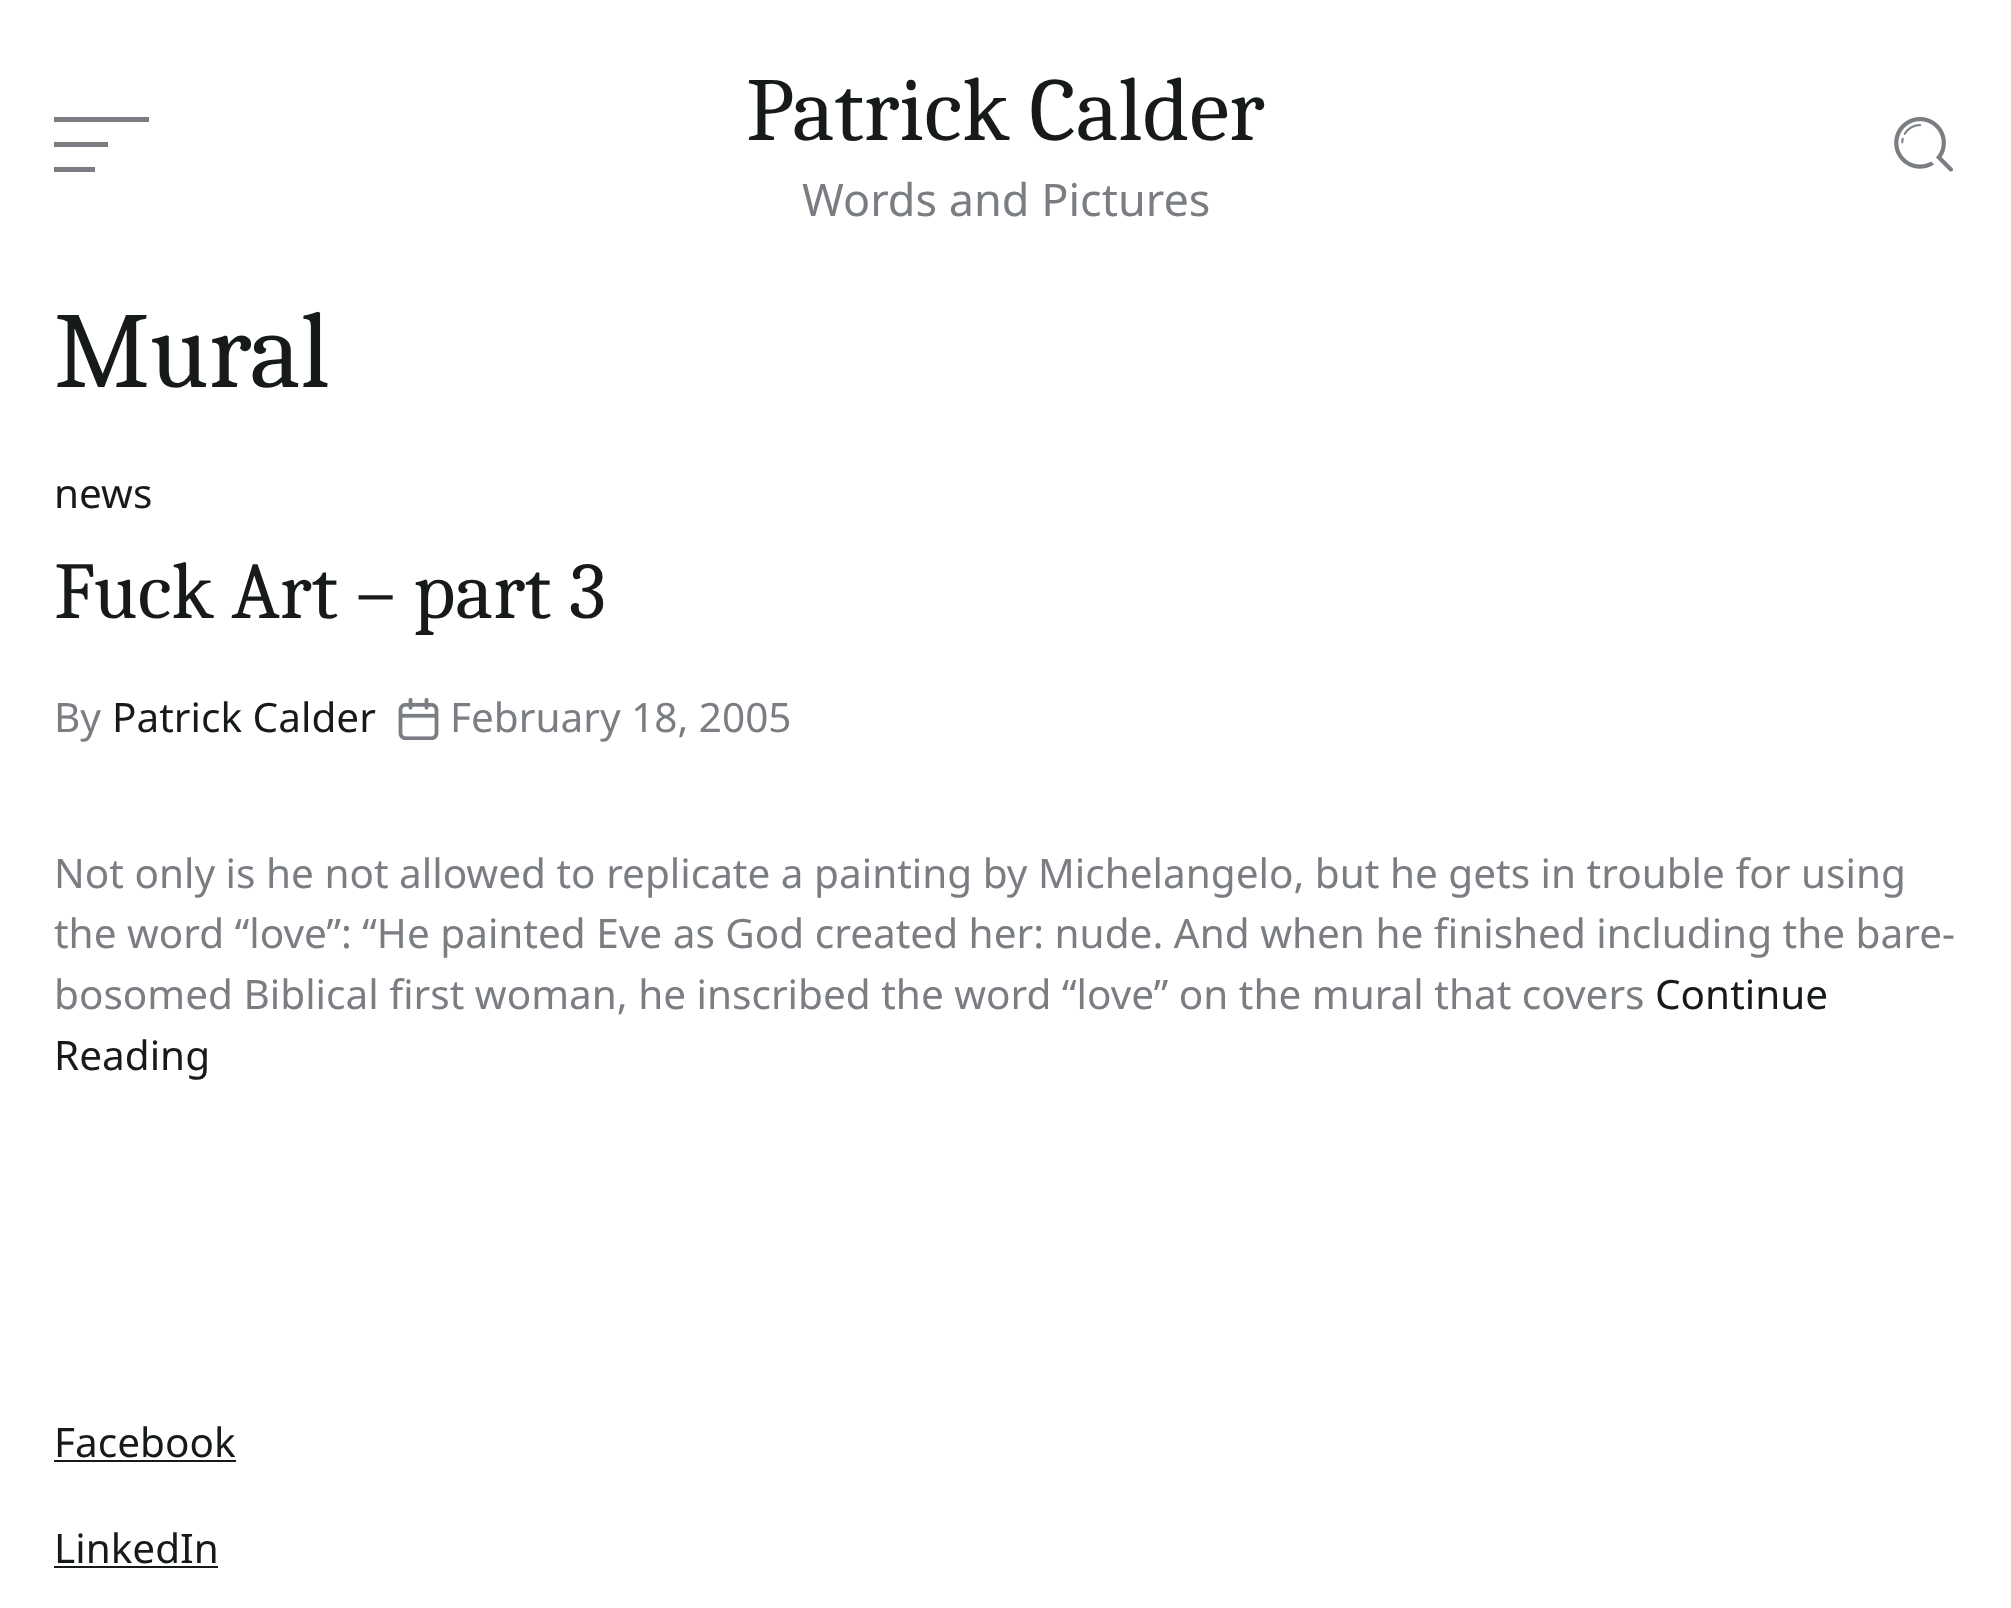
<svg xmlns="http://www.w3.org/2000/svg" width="2011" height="1608">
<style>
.a{font:90px Caladea;fill:#171a1b}
.b{font:45px Noto Sans;fill:#7a7e83}
.c{font:108px Caladea;fill:#171a1b}
.d{font:40.5px Noto Sans;fill:#171a1b}
.e{font:80.5px Caladea;fill:#171a1b}
.f{font:40.5px Noto Sans;fill:#7a7e83}
</style>
<rect width="100%" height="100%" fill="#fff"/>
<path fill="#7a7e83" d="M54 117h95v5H54z"/>
<path fill="#7a7e83" d="M54 142h54v5H54z"/>
<path fill="#7a7e83" d="M54 167h41v5H54z"/>
<image href="1.png" x="1894" y="117" width="59" height="55"/>
<image href="2.png" x="398" y="698" width="41" height="42"/>
<path fill="#171a1b" d="M54 1460h182v2H54z"/>
<path fill="#171a1b" d="M54 1566h164v2H54z"/>
<text class="a" x="746" y="140">Patrick Calder</text>
<text class="b" x="802" y="216">Words and Pictures</text>
<text class="c" x="54" y="387">Mural</text>
<text class="d" x="54" y="508">news</text>
<text class="e" x="54" y="618">Fuck Art – part 3</text>
<text class="f" x="54" y="732">By</text>
<text class="d" x="112" y="732">Patrick Calder</text>
<text class="f" x="450" y="732">February 18, 2005</text>
<text class="f" x="54" y="888">Not only is he not allowed to replicate a painting by Michelangelo, but he gets in trouble for using</text>
<text class="f" x="54" y="948">the word “love”: “He painted Eve as God created her: nude. And when he finished including the bare-</text>
<text class="f" x="54" y="1009">bosomed Biblical first woman, he inscribed the word “love” on the mural that covers</text>
<text class="d" x="1655" y="1009">Continue</text>
<text class="d" x="54" y="1070">Reading</text>
<text class="d" x="54" y="1457">Facebook</text>
<text class="d" x="54" y="1563">LinkedIn</text>
</svg>
